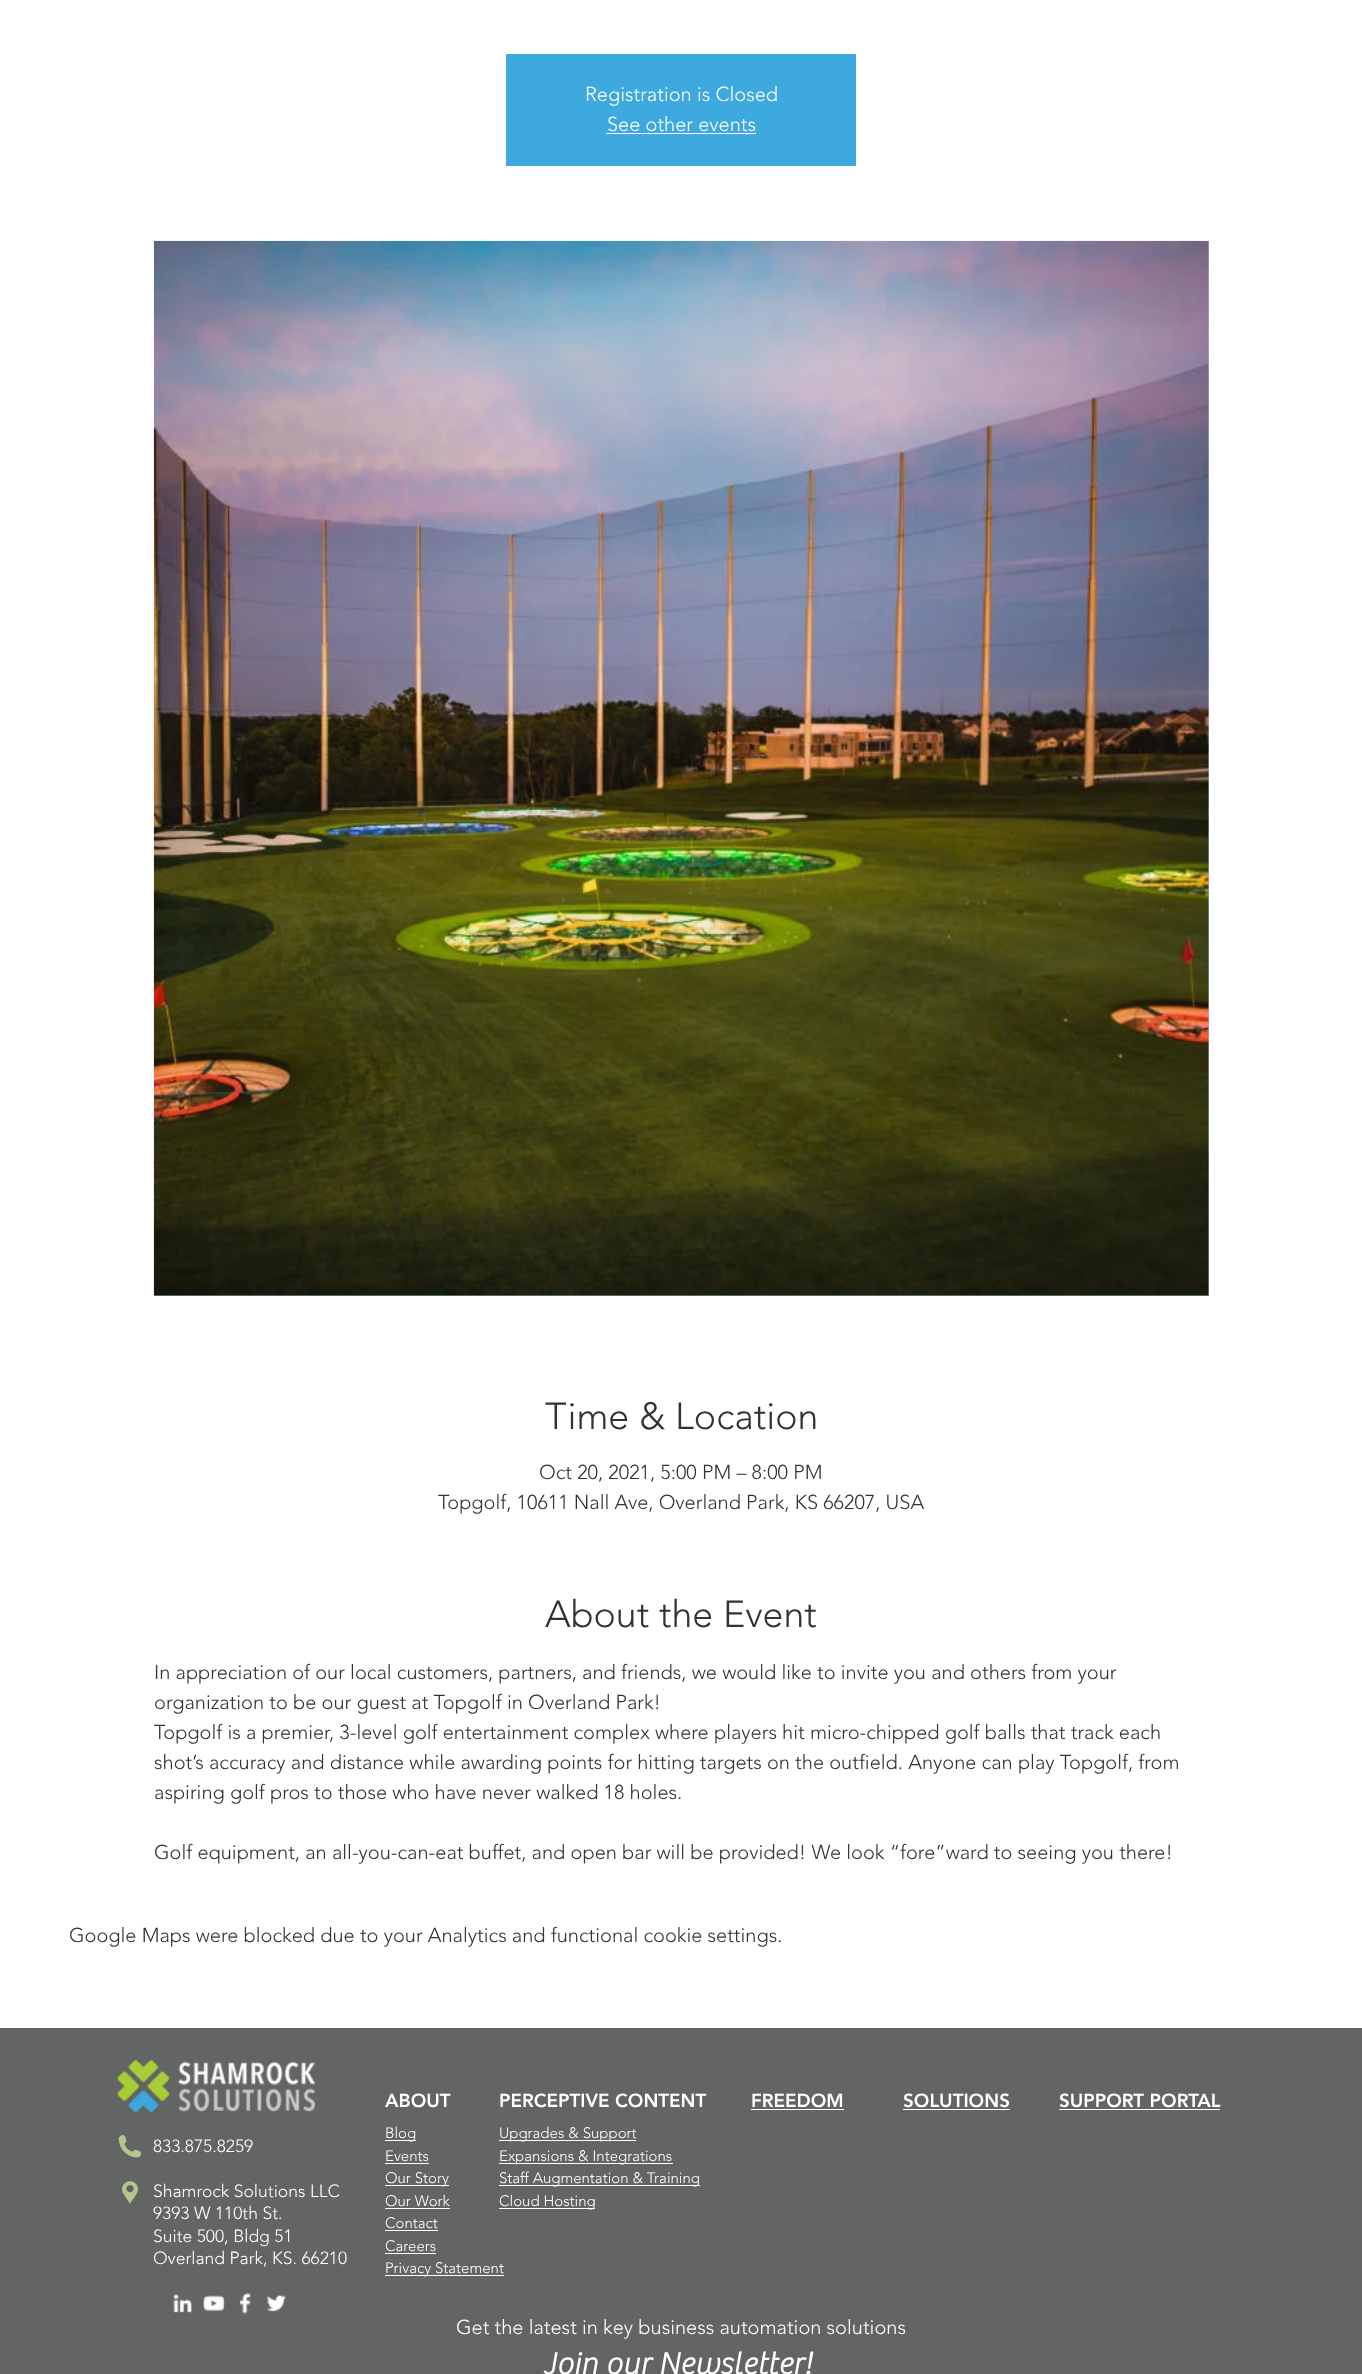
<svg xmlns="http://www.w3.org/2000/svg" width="1362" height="2374">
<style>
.a{font:300 20px 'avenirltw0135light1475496';fill:#fff}
.b{font:300 37.5px 'avenirltw0135light1475496';fill:#323232}
.c{font:300 20px 'avenirltw0135light1475496';fill:#323232}
.d{font:900 18.75px 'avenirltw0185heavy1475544';fill:#fff}
.e{font:300 15px 'avenirltw0135light1475496';fill:#fff}
.f{font:300 17.5px 'avenirltw0135light1475496';fill:#fff}
.g{font:bold 31.25px 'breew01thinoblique';letter-spacing:0.6px;fill:#fff}
</style>
<rect width="100%" height="100%" fill="#fff"/>
<path fill="#3da9df" d="M506 54h350v112H506z"/>
<path fill="#fff" d="M606 133h150v1H606z"/>
<path fill="#95cdea" d="M154 241h1055v1055H154z"/>
<image href="1.png" x="153" y="240" width="1056" height="1056"/>
<path fill="#636464" d="M0 2028h1362v346H0z"/>
<image href="2.png" x="117" y="2059" width="198" height="54"/>
<path fill="#fff" d="M385 2140h31v1H385z"/>
<path fill="#fff" d="M385 2163h44v1H385z"/>
<path fill="#fff" d="M385 2185h64v1H385z"/>
<path fill="#fff" d="M385 2208h65v1H385z"/>
<path fill="#fff" d="M385 2230h53v1H385z"/>
<path fill="#fff" d="M385 2253h51v1H385z"/>
<path fill="#fff" d="M385 2275h119v1H385z"/>
<path fill="#fff" d="M751 2109h93v1H751z"/>
<path fill="#fff" d="M903 2109h107v1H903z"/>
<path fill="#fff" d="M499 2140h137v1H499z"/>
<path fill="#fff" d="M499 2163h174v1H499z"/>
<path fill="#fff" d="M499 2185h201v1H499z"/>
<path fill="#fff" d="M499 2208h96v1H499z"/>
<path fill="#fff" d="M1059 2109h161v1H1059z"/>
<image href="3.png" x="118" y="2135" width="24" height="23"/>
<image href="4.png" x="122" y="2181" width="16" height="23"/>
<image href="5.png" x="173" y="2294" width="19" height="19"/>
<image href="6.png" x="203" y="2295" width="22" height="16"/>
<image href="7.png" x="239" y="2293" width="12" height="21"/>
<image href="8.png" x="266" y="2294" width="21" height="18"/>
<text class="a" x="585" y="101">Registration is Closed</text>
<text class="a" x="607" y="131">See other events</text>
<text class="b" x="545" y="1429">Time &amp; Location</text>
<text class="c" x="539" y="1479">Oct 20, 2021, 5:00 PM – 8:00 PM</text>
<text class="c" x="438" y="1509">Topgolf, 10611 Nall Ave, Overland Park, KS 66207, USA</text>
<text class="b" x="545" y="1627">About the Event</text>
<text class="c" x="154" y="1679">In appreciation of our local customers, partners, and friends, we would like to invite you and others from your</text>
<text class="c" x="154" y="1709">organization to be our guest at Topgolf in Overland Park!</text>
<text class="c" x="154" y="1739">Topgolf is a premier, 3-level golf entertainment complex where players hit micro-chipped golf balls that track each</text>
<text class="c" x="154" y="1769">shot’s accuracy and distance while awarding points for hitting targets on the outfield. Anyone can play Topgolf, from</text>
<text class="c" x="154" y="1799">aspiring golf pros to those who have never walked 18 holes.</text>
<text class="c" x="154" y="1859">Golf equipment, an all-you-can-eat buffet, and open bar will be provided! We look “fore”ward to seeing you there!</text>
<text class="c" x="69" y="1942">Google Maps were blocked due to your Analytics and functional cookie settings.</text>
<text class="d" x="385" y="2107">ABOUT</text>
<text class="e" x="385" y="2138">Blog</text>
<text class="e" x="385" y="2161">Events</text>
<text class="e" x="385" y="2183">Our Story</text>
<text class="e" x="385" y="2206">Our Work</text>
<text class="e" x="385" y="2228">Contact</text>
<text class="e" x="385" y="2251">Careers</text>
<text class="e" x="385" y="2273">Privacy Statement</text>
<text class="d" x="499" y="2107">PERCEPTIVE CONTENT</text>
<text class="d" x="751" y="2107">FREEDOM</text>
<text class="d" x="903" y="2107">SOLUTIONS</text>
<text class="e" x="499" y="2138">Upgrades &amp; Support</text>
<text class="e" x="499" y="2161">Expansions &amp; Integrations</text>
<text class="e" x="499" y="2183">Staff Augmentation &amp; Training</text>
<text class="e" x="499" y="2206">Cloud Hosting</text>
<text class="d" x="1059" y="2107">SUPPORT PORTAL</text>
<text class="f" x="153" y="2152">833.875.8259</text>
<text class="f" x="153" y="2197">Shamrock Solutions LLC</text>
<text class="f" x="153" y="2219">9393 W 110th St.</text>
<text class="f" x="153" y="2242">Suite 500, Bldg 51</text>
<text class="f" x="153" y="2264">Overland Park, KS. 66210</text>
<text class="a" x="456" y="2334">Get the latest in key business automation solutions</text>
<text class="g" x="543" y="2374">Join our Newsletter!</text>
</svg>
